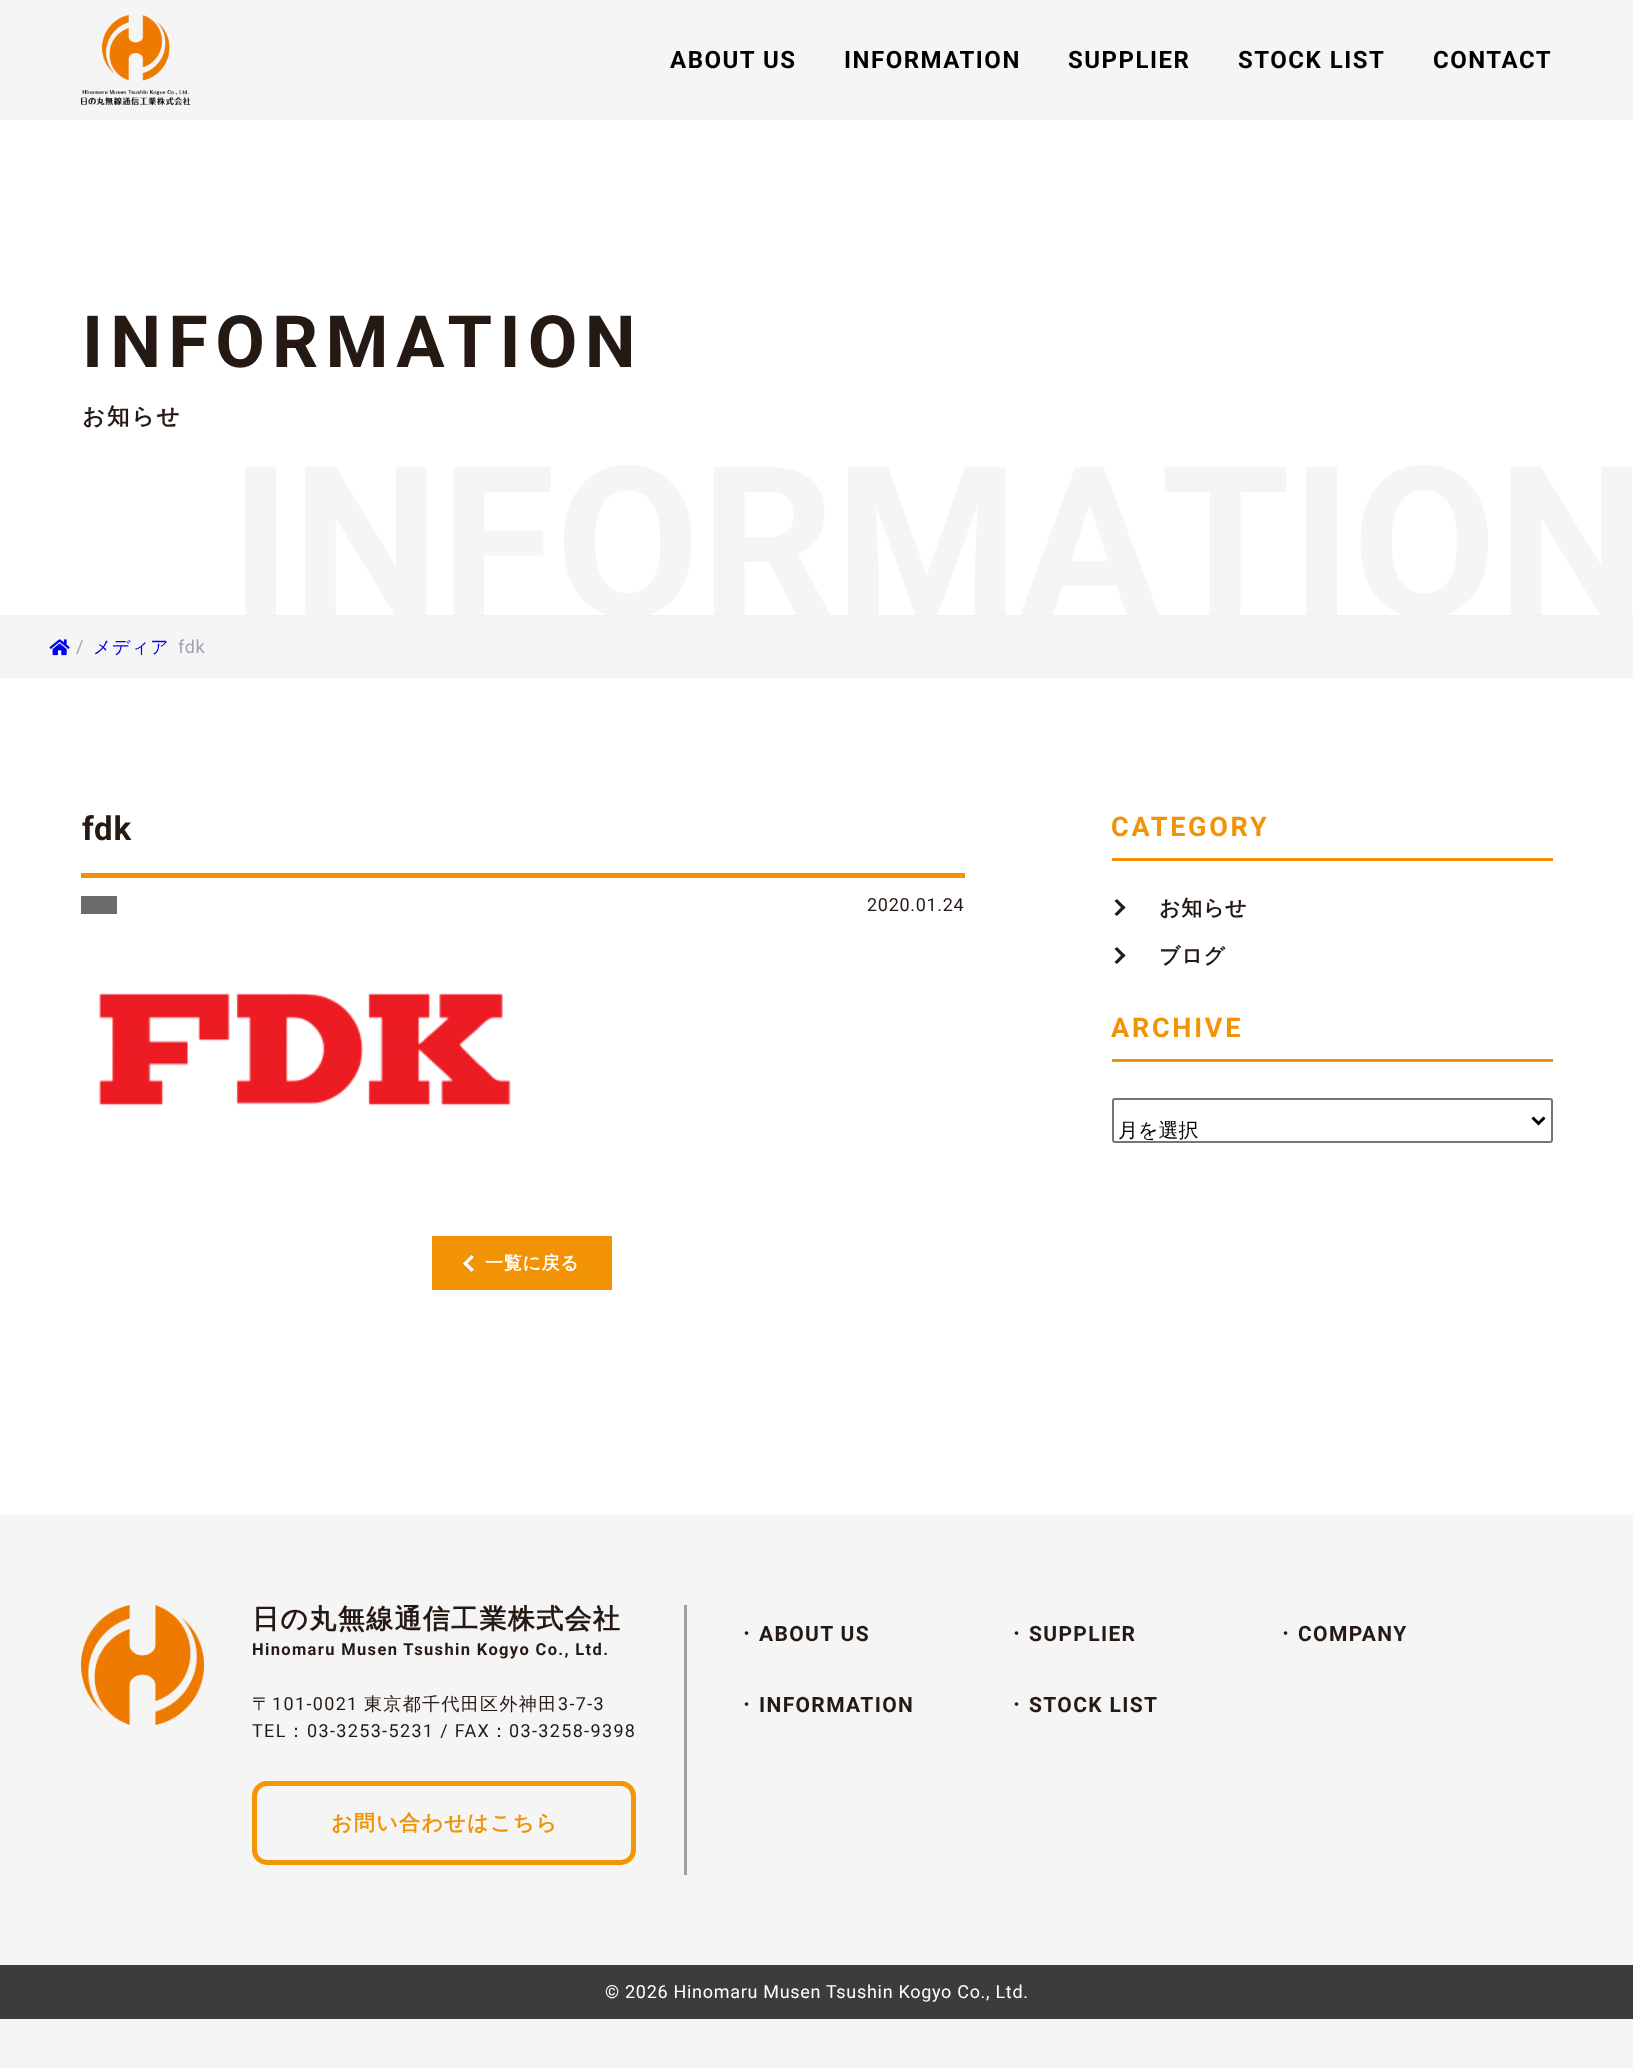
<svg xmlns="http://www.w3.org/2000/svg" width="1633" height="2068">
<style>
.a{font:bold 24px Roboto;letter-spacing:1.5px;fill:#000}
.b{font:bold 72px Roboto;letter-spacing:7.25px;fill:#241913}
.c{font:bold 22.5px WenQuanYi Zen Hei;letter-spacing:2px;fill:#241913}
.d{font:18px Roboto;letter-spacing:0.7px;fill:#a0a2b1}
.e{font:500 18px WenQuanYi Zen Hei;letter-spacing:0.7px;fill:#00e}
.f{font:bold 33px Roboto;letter-spacing:0.7px;fill:#241913}
.g{font:18px Roboto;letter-spacing:0.7px;fill:#241913}
.h{font:bold 18px WenQuanYi Zen Hei;letter-spacing:0.7px;fill:#fff}
.i{font:bold 27px Roboto;letter-spacing:2.75px;fill:#f29205}
.j{font:bold 21px WenQuanYi Zen Hei;letter-spacing:0.7px;fill:#241913}
.k{font:500 20px WenQuanYi Zen Hei;fill:#000}
.l{font:bold 27px WenQuanYi Zen Hei;letter-spacing:1.35px;fill:#241913}
.m{font:bold 16.5px Roboto;letter-spacing:1.35px;fill:#241913}
.n{font:500 18px WenQuanYi Zen Hei;letter-spacing:1.35px;fill:#241913}
.o{font:18px Roboto;letter-spacing:1.35px;fill:#241913}
.p{font:bold 21px WenQuanYi Zen Hei;letter-spacing:1.35px;fill:#f29205}
.q{font:500 22.5px WenQuanYi Zen Hei;letter-spacing:1.35px;fill:#241913}
.r{font:bold 21px Roboto;letter-spacing:1.35px;fill:#241913}
.s{font:18px Roboto;letter-spacing:0.7px;fill:#fff}
</style>
<rect width="100%" height="100%" fill="#f5f5f5"/>
<image href="1.png" x="81" y="15" width="110" height="90"/>
<path fill="#fff" d="M0 120h1633v495H0z"/>
<image href="2.png" x="245" y="465" width="1387" height="150"/>
<path fill="#f2f2f2" d="M0 615h1633v2H0z"/>
<path fill="#f2f2f2" d="M0 677h1633v1H0z"/>
<image href="3.png" x="49" y="639" width="21" height="17"/>
<path fill="#fff" d="M0 678h1633v837H0z"/>
<path fill="#f29205" d="M81 873h884v5H81z"/>
<path fill="#6b6b6b" d="M81 896h36v18H81z"/>
<image href="4.png" x="98" y="993" width="413" height="113"/>
<path fill="#f29205" d="M432 1236h180v54H432z"/>
<path fill="#fff" d="M465.5 1261.5l8.5 8l-2.5 2.5l-8.5-8.5z"/>
<path fill="#fff" d="M471.5 1255l2.5 2l-8.5 8.5l-2.5-2z"/>
<path fill="#f29205" d="M1112 858h441v3H1112z"/>
<path fill="#241913" d="M1114.5 901l2.5-2l8.5 8.5l-2.5 2z"/>
<path fill="#241913" d="M1114.5 914l8.5-8.5l2.5 2l-8.5 8.5z"/>
<path fill="#241913" d="M1114.5 949l2.5-2l8.5 8.5l-2.5 2z"/>
<path fill="#241913" d="M1114.5 962l8.5-8.5l2.5 2l-8.5 8.5z"/>
<path fill="#f29205" d="M1112 1059h441v3H1112z"/>
<rect fill="none" stroke="#767676" stroke-width="2" x="1113" y="1099" width="439" height="43" rx="2"/>
<path fill="none" stroke="#000" stroke-width="3" d="M1532.5 1117.5l6 6l6-6"/>
<image href="5.png" x="81" y="1605" width="123" height="120"/>
<rect fill="none" stroke="#f29605" stroke-width="5" x="254.5" y="1783.5" width="379" height="79" rx="12.5"/>
<path fill="#a0a0a0" d="M684 1605h3v270H684z"/>
<path fill="#3c3c3c" d="M0 1965h1633v54H0z"/>
<text class="a" x="670" y="68">ABOUT US</text>
<text class="a" x="844" y="68">INFORMATION</text>
<text class="a" x="1068" y="68">SUPPLIER</text>
<text class="a" x="1238" y="68">STOCK LIST</text>
<text class="a" x="1433" y="68">CONTACT</text>
<text class="b" x="82" y="367">INFORMATION</text>
<text class="c" x="82" y="424">お知らせ</text>
<text class="d" x="76" y="653">/</text>
<text class="e" x="93" y="653">メディア</text>
<text class="d" x="178" y="653">fdk</text>
<text class="f" x="82" y="840">fdk</text>
<text class="g" x="867" y="911">2020.01.24</text>
<text class="h" x="485" y="1269">一覧に戻る</text>
<text class="i" x="1111" y="836">CATEGORY</text>
<text class="j" x="1159" y="915">お知らせ</text>
<text class="j" x="1159" y="963">ブログ</text>
<text class="i" x="1111" y="1037">ARCHIVE</text>
<text class="k" x="1118" y="1137">月を選択</text>
<text class="l" x="252" y="1628">日の丸無線通信工業株式会社</text>
<text class="m" x="252" y="1655">Hinomaru Musen Tsushin Kogyo Co., Ltd.</text>
<text class="n" x="252" y="1710">〒</text>
<text class="o" x="272" y="1710">101-0021</text>
<text class="n" x="364" y="1710">東京都千代田区外神田</text>
<text class="o" x="558" y="1710">3-7-3</text>
<text class="o" x="252" y="1737">TEL</text>
<text class="n" x="287" y="1737">：</text>
<text class="o" x="307" y="1737">03-3253-5231 / FAX</text>
<text class="n" x="490" y="1737">：</text>
<text class="o" x="509" y="1737">03-3258-9398</text>
<text class="p" x="331" y="1830">お問い合わせはこちら</text>
<text class="q" x="735" y="1641">・</text>
<text class="r" x="759" y="1641">ABOUT US</text>
<text class="q" x="735" y="1712">・</text>
<text class="r" x="759" y="1712">INFORMATION</text>
<text class="q" x="1005" y="1641">・</text>
<text class="r" x="1029" y="1641">SUPPLIER</text>
<text class="q" x="1005" y="1712">・</text>
<text class="r" x="1029" y="1712">STOCK LIST</text>
<text class="q" x="1274" y="1641">・</text>
<text class="r" x="1298" y="1641">COMPANY</text>
<text class="s" x="605" y="1998">© 2026 Hinomaru Musen Tsushin Kogyo Co., Ltd.</text>
</svg>
